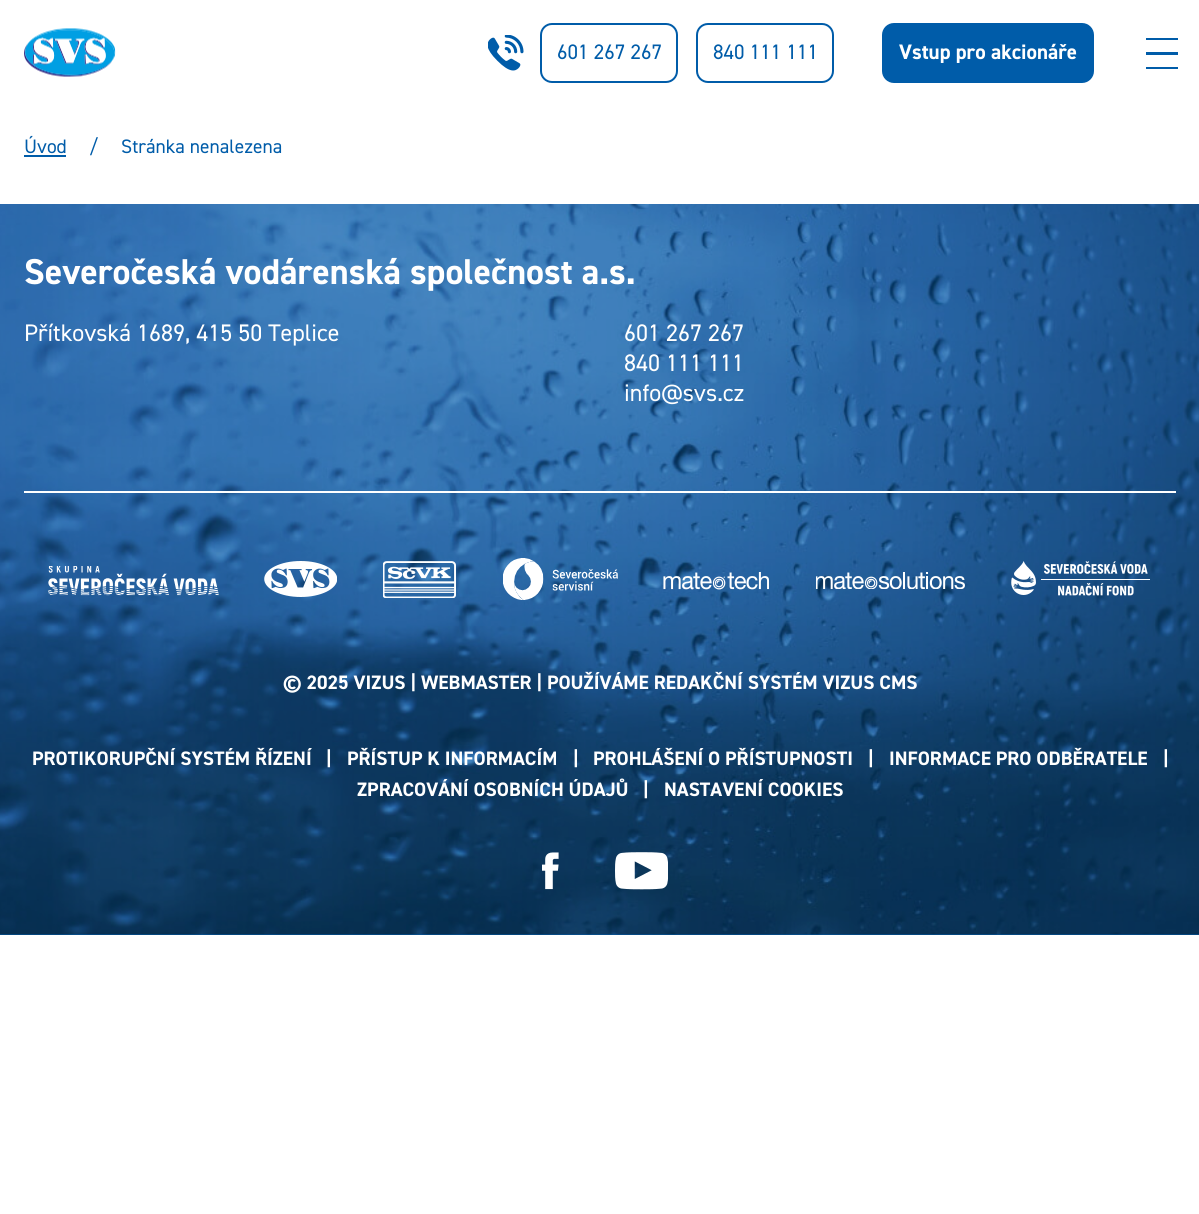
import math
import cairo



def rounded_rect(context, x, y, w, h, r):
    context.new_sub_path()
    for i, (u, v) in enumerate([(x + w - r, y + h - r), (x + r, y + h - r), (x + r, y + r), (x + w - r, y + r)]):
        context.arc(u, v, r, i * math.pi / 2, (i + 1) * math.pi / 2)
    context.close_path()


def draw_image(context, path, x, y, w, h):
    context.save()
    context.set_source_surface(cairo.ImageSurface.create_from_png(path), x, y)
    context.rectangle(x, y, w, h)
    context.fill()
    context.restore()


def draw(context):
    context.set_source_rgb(1, 1, 1)
    context.paint()
    draw_image(context, "images/1.png", 24, 28, 92, 49)
    draw_image(context, "images/2.png", 488, 35, 36, 36)
    rounded_rect(context, 541, 24, 136, 58, 11)
    context.set_source_rgb(0, 92 / 255, 169 / 255)
    context.stroke()
    rounded_rect(context, 697, 24, 136, 58, 11)
    context.stroke()
    rounded_rect(context, 883, 24, 210, 58, 11)
    context.fill_preserve()
    context.stroke()
    context.rectangle(1146, 38, 32, 2)
    context.fill()
    context.rectangle(1146, 52, 32, 3)
    context.fill()
    context.rectangle(1146, 67, 32, 2)
    context.fill()
    context.rectangle(24, 155, 42, 2)
    context.fill()
    context.rectangle(0, 204, 1199, 731)
    context.fill()
    draw_image(context, "images/3.png", 0, 204, 1199, 731)
    context.set_source_rgb(1, 1, 1)
    context.rectangle(24, 491, 1152, 2)
    context.fill()
    draw_image(context, "images/4.png", 48, 566, 171, 30)
    draw_image(context, "images/5.png", 264, 561, 73, 36)
    draw_image(context, "images/6.png", 383, 561, 73, 37)
    draw_image(context, "images/7.png", 503, 558, 115, 42)
    draw_image(context, "images/8.png", 663, 572, 106, 18)
    draw_image(context, "images/9.png", 816, 572, 149, 17)
    draw_image(context, "images/10.png", 1011, 561, 139, 35)
    draw_image(context, "images/11.png", 542, 852, 17, 38)
    draw_image(context, "images/12.png", 615, 852, 53, 38)
    context.select_font_face("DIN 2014")
    context.set_font_size(21)
    context.set_source_rgb(0, 92 / 255, 169 / 255)
    context.move_to(557, 59)
    context.show_text("601 267 267")
    context.move_to(713, 59)
    context.show_text("840 111 111")
    context.select_font_face("DIN 2014", cairo.FontSlant.NORMAL, cairo.FontWeight.BOLD)
    context.set_source_rgb(1, 1, 1)
    context.move_to(899, 59)
    context.show_text("Vstup pro akcionáře")
    context.select_font_face("DIN 2014")
    context.set_font_size(19.5)
    context.set_source_rgb(0, 92 / 255, 169 / 255)
    context.move_to(24, 153)
    context.show_text("Úvod")
    context.move_to(89, 153)
    context.show_text("/")
    context.move_to(121, 153)
    context.show_text("Stránka nenalezena")
    context.select_font_face("DIN 2014", cairo.FontSlant.NORMAL, cairo.FontWeight.BOLD)
    context.set_font_size(36)
    context.set_source_rgb(1, 1, 1)
    context.move_to(24, 284)
    context.show_text("Severočeská vodárenská společnost a.s.")
    context.select_font_face("DIN 2014")
    context.set_font_size(24)
    context.move_to(24, 341)
    context.show_text("Přítkovská 1689, 415 50 Teplice")
    context.move_to(624, 341)
    context.show_text("601 267 267")
    context.move_to(624, 371)
    context.show_text("840 111 111")
    context.move_to(624, 401)
    context.show_text("info@svs.cz")
    context.select_font_face("DIN 2014", cairo.FontSlant.NORMAL, cairo.FontWeight.BOLD)
    context.set_font_size(19.5)
    context.move_to(283, 689)
    context.show_text("© 2025 VIZUS | WEBMASTER | POUŽÍVÁME REDAKČNÍ SYSTÉM VIZUS CMS")
    context.move_to(32, 765)
    context.show_text("PROTIKORUPČNÍ SYSTÉM ŘÍZENÍ")
    context.move_to(326, 765)
    context.show_text("|")
    context.move_to(347, 765)
    context.show_text("PŘÍSTUP K INFORMACÍM")
    context.move_to(573, 765)
    context.show_text("|")
    context.move_to(593, 765)
    context.show_text("PROHLÁŠENÍ O PŘÍSTUPNOSTI")
    context.move_to(868, 765)
    context.show_text("|")
    context.move_to(889, 765)
    context.show_text("INFORMACE PRO ODBĚRATELE")
    context.move_to(1163, 765)
    context.show_text("|")
    context.move_to(357, 796)
    context.show_text("ZPRACOVÁNÍ OSOBNÍCH ÚDAJŮ")
    context.move_to(643, 796)
    context.show_text("|")
    context.move_to(664, 796)
    context.show_text("NASTAVENÍ COOKIES")


surface = cairo.ImageSurface(cairo.Format.RGB24, 1199, 1214)
context = cairo.Context(surface)
options = cairo.FontOptions()
options.set_hint_metrics(cairo.HintMetrics.OFF)
options.set_hint_style(cairo.HintStyle.NONE)
context.set_font_options(options)
context.set_miter_limit(4)
draw(context)
surface.write_to_png("out.png")
